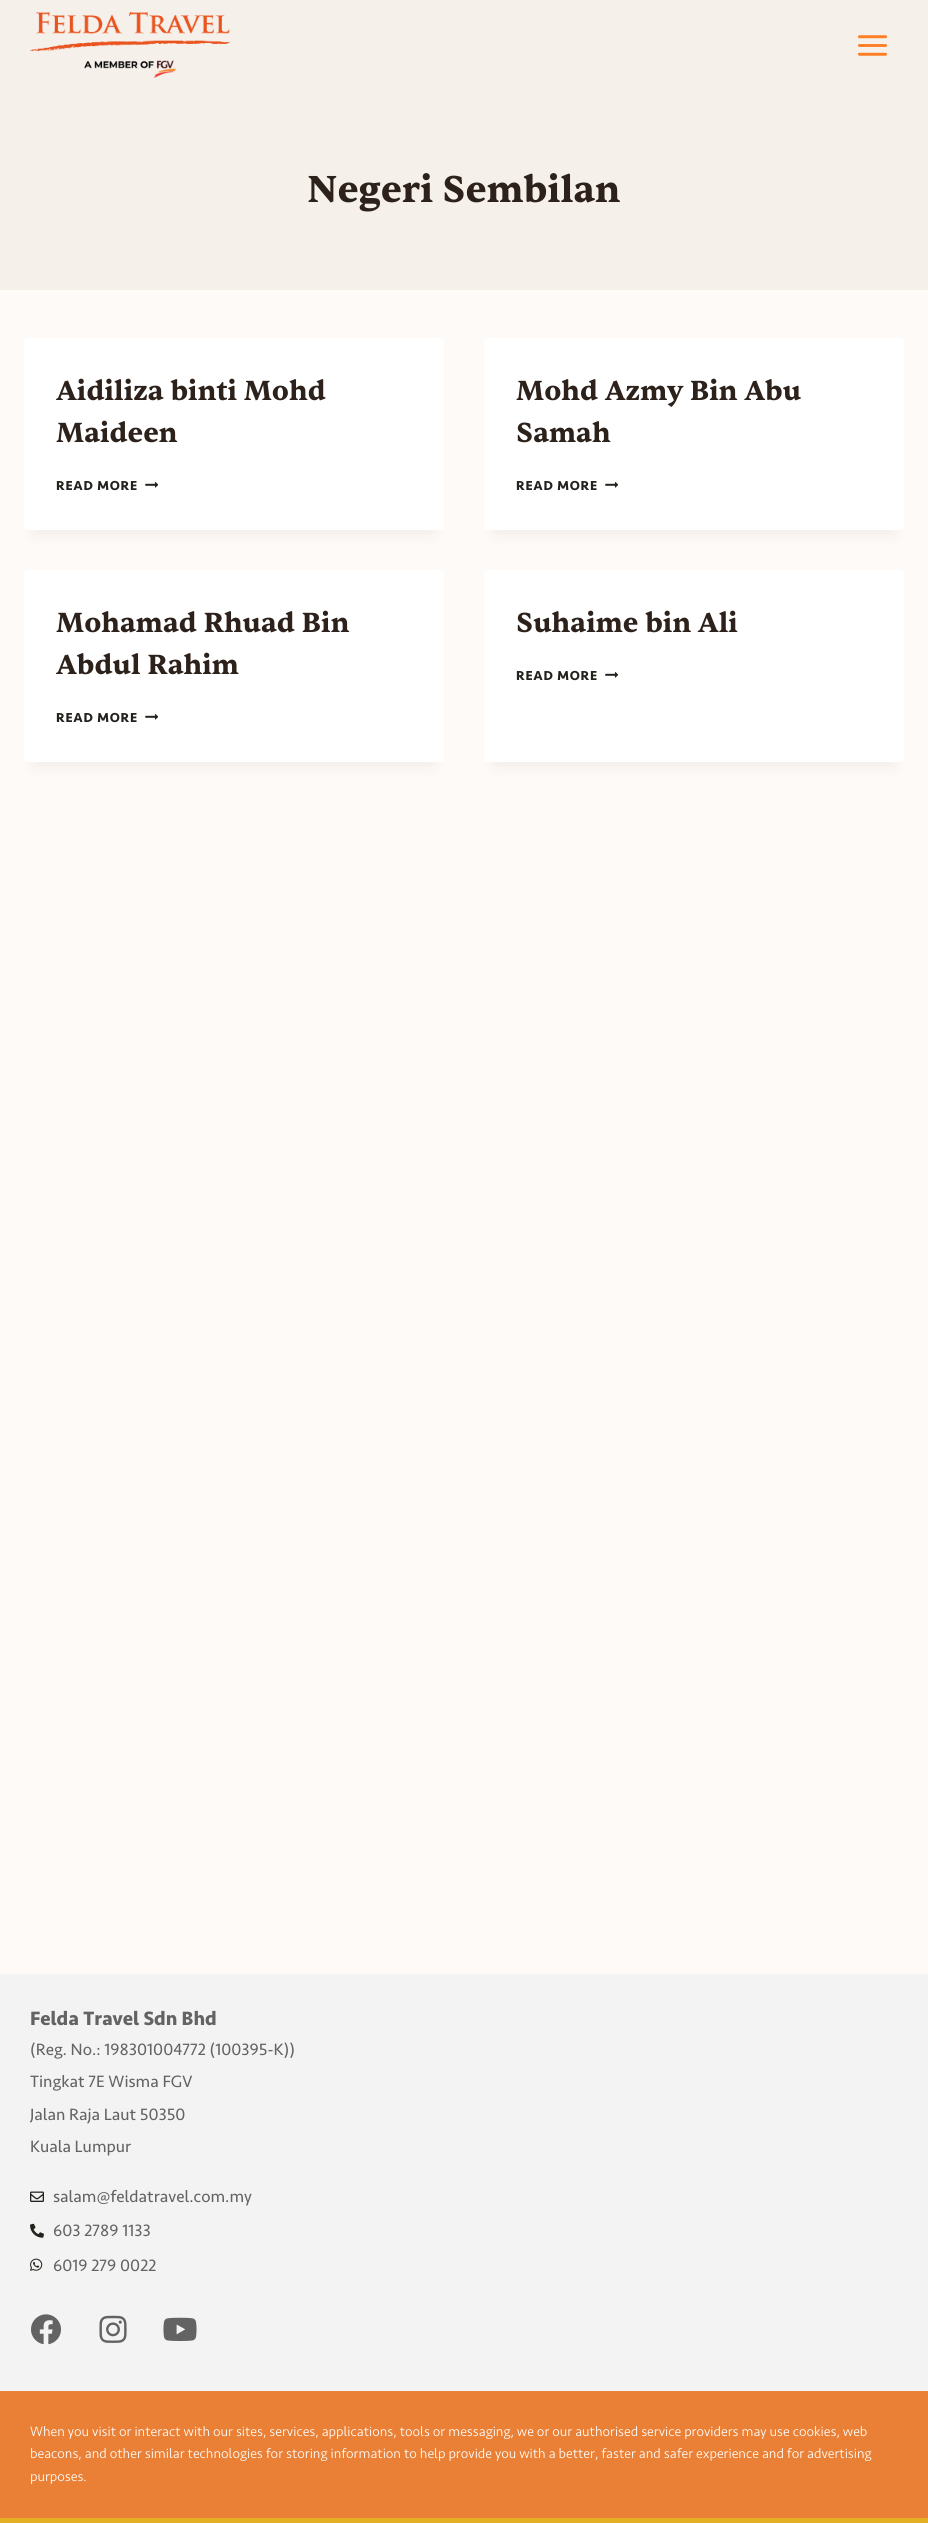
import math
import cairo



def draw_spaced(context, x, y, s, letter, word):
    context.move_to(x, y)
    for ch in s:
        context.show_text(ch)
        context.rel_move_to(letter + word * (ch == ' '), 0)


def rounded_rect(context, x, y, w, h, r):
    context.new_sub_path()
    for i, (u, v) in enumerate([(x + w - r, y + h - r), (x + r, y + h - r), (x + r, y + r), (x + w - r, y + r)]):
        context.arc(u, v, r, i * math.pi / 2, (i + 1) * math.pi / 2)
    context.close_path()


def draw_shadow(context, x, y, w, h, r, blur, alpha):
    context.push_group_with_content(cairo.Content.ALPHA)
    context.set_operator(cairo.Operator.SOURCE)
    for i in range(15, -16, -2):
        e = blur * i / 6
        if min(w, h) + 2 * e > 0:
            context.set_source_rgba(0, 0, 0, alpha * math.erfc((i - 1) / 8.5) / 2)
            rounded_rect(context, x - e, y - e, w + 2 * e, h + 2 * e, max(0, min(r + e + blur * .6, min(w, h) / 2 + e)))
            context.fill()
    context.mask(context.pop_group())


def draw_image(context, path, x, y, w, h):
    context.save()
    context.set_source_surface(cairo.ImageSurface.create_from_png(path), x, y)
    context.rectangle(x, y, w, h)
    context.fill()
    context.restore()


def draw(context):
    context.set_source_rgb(253 / 255, 250 / 255, 248 / 255)
    context.paint()
    context.set_source_rgb(246 / 255, 240 / 255, 235 / 255)
    context.rectangle(0, 0, 928, 290)
    context.fill()
    draw_image(context, "images/1.png", 30, 12, 200, 66)
    draw_image(context, "images/2.png", 857, 35, 31, 21)
    context.set_source_rgb(0, 0, 0)
    draw_shadow(context, 34, 363, 400, 172, 0, 7.5, 0.05)
    context.set_source_rgb(1, 1, 1)
    rounded_rect(context, 24, 338, 420, 192, 4)
    context.fill()
    draw_image(context, "images/3.png", 145, 481, 13, 7)
    context.set_source_rgb(0, 0, 0)
    draw_shadow(context, 494, 363, 400, 172, 0, 7.5, 0.05)
    context.set_source_rgb(1, 1, 1)
    rounded_rect(context, 484, 338, 420, 192, 4)
    context.fill()
    draw_image(context, "images/3.png", 605, 481, 13, 7)
    context.set_source_rgb(0, 0, 0)
    draw_shadow(context, 34, 595, 400, 172, 0, 7.5, 0.05)
    context.set_source_rgb(1, 1, 1)
    rounded_rect(context, 24, 570, 420, 192, 4)
    context.fill()
    draw_image(context, "images/3.png", 145, 713, 13, 7)
    context.set_source_rgb(0, 0, 0)
    draw_shadow(context, 494, 595, 400, 172, 0, 7.5, 0.05)
    context.set_source_rgb(1, 1, 1)
    rounded_rect(context, 484, 570, 420, 192, 4)
    context.fill()
    draw_image(context, "images/3.png", 605, 671, 13, 7)
    context.set_source_rgb(243 / 255, 243 / 255, 243 / 255)
    context.rectangle(0, 1974, 928, 417)
    context.fill()
    draw_image(context, "images/4.png", 30, 2191, 14, 11)
    draw_image(context, "images/5.png", 30, 2223, 14, 15)
    draw_image(context, "images/6.png", 30, 2258, 13, 13)
    draw_image(context, "images/7.png", 31, 2314, 30, 31)
    draw_image(context, "images/8.png", 99, 2315, 28, 28)
    draw_image(context, "images/9.png", 163, 2317, 34, 24)
    context.set_source_rgb(234 / 255, 128 / 255, 54 / 255)
    context.rectangle(0, 2391, 928, 127)
    context.fill()
    context.set_source_rgb(227 / 255, 175 / 255, 37 / 255)
    context.rectangle(0, 2518, 928, 5)
    context.fill()
    context.select_font_face("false", cairo.FontSlant.NORMAL, cairo.FontWeight.BOLD)
    context.set_font_size(38)
    context.set_source_rgb(45 / 255, 34 / 255, 27 / 255)
    context.move_to(307, 202)
    context.show_text("Negeri Sembilan")
    context.set_font_size(28)
    context.move_to(56, 400)
    context.show_text("Aidiliza binti Mohd")
    context.move_to(56, 442)
    context.show_text("Maideen")
    context.select_font_face("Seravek", cairo.FontSlant.NORMAL, cairo.FontWeight.BOLD)
    context.set_font_size(13.5)
    context.set_source_rgb(36 / 255, 34 / 255, 29 / 255)
    draw_spaced(context, 56, 490, "READ MORE", 0.75, 0)
    context.select_font_face("false", cairo.FontSlant.NORMAL, cairo.FontWeight.BOLD)
    context.set_font_size(28)
    context.set_source_rgb(45 / 255, 34 / 255, 27 / 255)
    context.move_to(516, 400)
    context.show_text("Mohd Azmy Bin Abu")
    context.move_to(516, 442)
    context.show_text("Samah")
    context.select_font_face("Seravek", cairo.FontSlant.NORMAL, cairo.FontWeight.BOLD)
    context.set_font_size(13.5)
    context.set_source_rgb(36 / 255, 34 / 255, 29 / 255)
    draw_spaced(context, 516, 490, "READ MORE", 0.75, 0)
    context.select_font_face("false", cairo.FontSlant.NORMAL, cairo.FontWeight.BOLD)
    context.set_font_size(28)
    context.set_source_rgb(45 / 255, 34 / 255, 27 / 255)
    context.move_to(56, 632)
    context.show_text("Mohamad Rhuad Bin")
    context.move_to(56, 674)
    context.show_text("Abdul Rahim")
    context.select_font_face("Seravek", cairo.FontSlant.NORMAL, cairo.FontWeight.BOLD)
    context.set_font_size(13.5)
    context.set_source_rgb(36 / 255, 34 / 255, 29 / 255)
    draw_spaced(context, 56, 722, "READ MORE", 0.75, 0)
    context.select_font_face("false", cairo.FontSlant.NORMAL, cairo.FontWeight.BOLD)
    context.set_font_size(28)
    context.set_source_rgb(45 / 255, 34 / 255, 27 / 255)
    context.move_to(516, 632)
    context.show_text("Suhaime bin Ali")
    context.select_font_face("Seravek", cairo.FontSlant.NORMAL, cairo.FontWeight.BOLD)
    context.set_font_size(13.5)
    context.set_source_rgb(36 / 255, 34 / 255, 29 / 255)
    draw_spaced(context, 516, 680, "READ MORE", 0.75, 0)
    context.set_font_size(20)
    context.set_source_rgb(99 / 255, 99 / 255, 99 / 255)
    context.move_to(30, 2025)
    context.show_text("Felda Travel Sdn Bhd")
    context.select_font_face("Seravek")
    context.set_font_size(17)
    context.move_to(30, 2055)
    context.show_text("(Reg. No.: 198301004772 (100395-K))")
    context.move_to(30, 2087)
    context.show_text("Tingkat 7E Wisma FGV")
    context.move_to(30, 2120)
    context.show_text("Jalan Raja Laut 50350")
    context.move_to(30, 2152)
    context.show_text("Kuala Lumpur")
    context.move_to(53, 2202)
    context.show_text("salam@feldatravel.com.my")
    context.move_to(53, 2236)
    context.show_text("603 2789 1133")
    context.move_to(53, 2271)
    context.show_text("6019 279 0022")
    context.select_font_face("Seravek Light")
    context.set_font_size(14)
    context.set_source_rgb(1, 1, 1)
    context.move_to(30, 2436)
    context.show_text("When you visit or interact with our sites, services, applications, tools or messaging, we or our authorised service providers may use cookies, web")
    context.move_to(30, 2458)
    context.show_text("beacons, and other similar technologies for storing information to help provide you with a better, faster and safer experience and for advertising")
    context.move_to(30, 2481)
    context.show_text("purposes.")


surface = cairo.ImageSurface(cairo.Format.RGB24, 928, 2523)
context = cairo.Context(surface)
options = cairo.FontOptions()
options.set_hint_metrics(cairo.HintMetrics.OFF)
options.set_hint_style(cairo.HintStyle.NONE)
context.set_font_options(options)
context.set_miter_limit(4)
draw(context)
surface.write_to_png("out.png")
